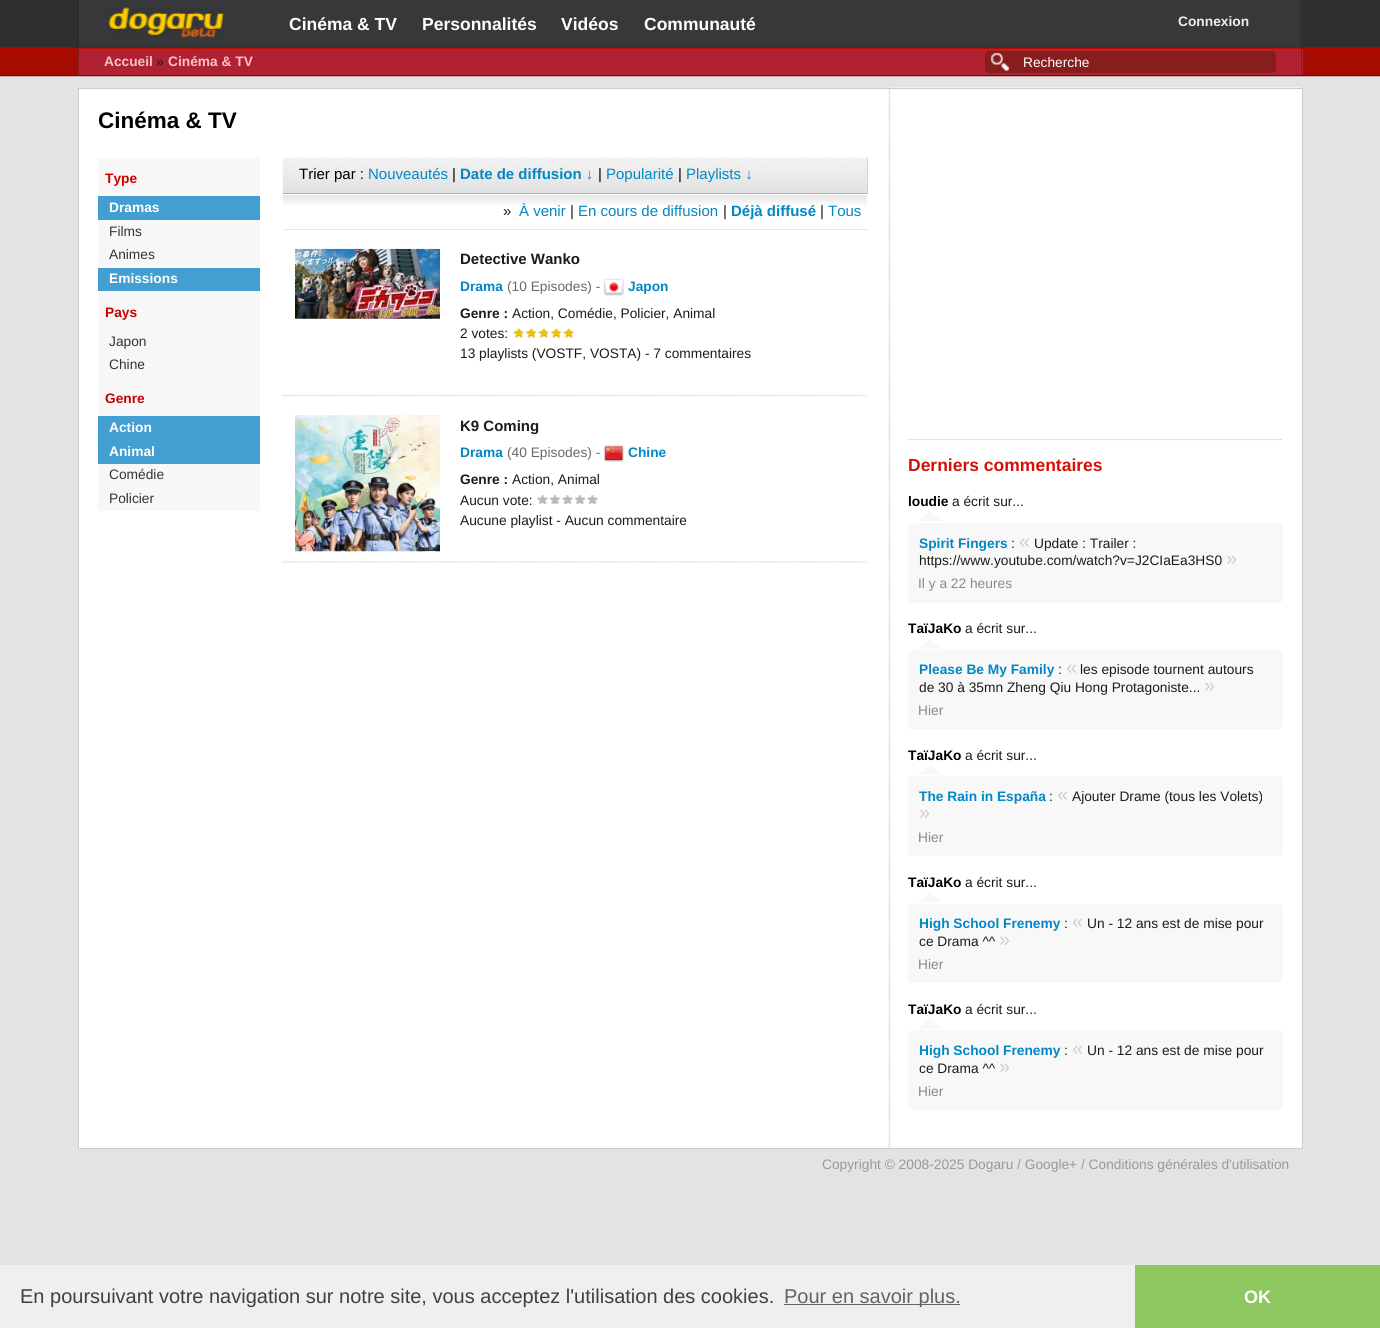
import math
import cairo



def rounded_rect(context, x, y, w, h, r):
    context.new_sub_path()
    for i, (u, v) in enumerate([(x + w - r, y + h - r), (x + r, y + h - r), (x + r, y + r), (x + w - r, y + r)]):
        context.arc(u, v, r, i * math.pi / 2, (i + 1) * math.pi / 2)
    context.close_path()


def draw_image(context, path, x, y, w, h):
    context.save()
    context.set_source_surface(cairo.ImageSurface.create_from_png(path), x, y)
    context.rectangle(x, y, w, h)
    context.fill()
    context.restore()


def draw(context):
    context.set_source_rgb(227 / 255, 227 / 255, 227 / 255)
    context.paint()
    draw_image(context, "images/1.png", 0, 0, 1380, 77)
    context.set_source_rgb(55 / 255, 56 / 255, 58 / 255)
    context.rectangle(79, 0, 1224, 48)
    context.fill()
    context.set_source_rgb(41 / 255, 42 / 255, 43 / 255)
    context.rectangle(1301, 0, 1, 48)
    context.fill()
    context.set_source_rgb(49 / 255, 50 / 255, 51 / 255)
    context.rectangle(78, 46, 1225, 1)
    context.fill()
    context.set_source_rgb(41 / 255, 42 / 255, 43 / 255)
    context.rectangle(78, 0, 1, 48)
    context.fill()
    draw_image(context, "images/2.png", 107, 7, 117, 31)
    context.set_source_rgb(176 / 255, 34 / 255, 50 / 255)
    context.rectangle(79, 49, 1224, 26)
    context.fill()
    context.set_source_rgb(187 / 255, 12 / 255, 0)
    context.rectangle(78, 48, 1225, 1)
    context.fill()
    context.set_source_rgb(135 / 255, 29 / 255, 29 / 255)
    context.rectangle(1301, 48, 1, 28)
    context.fill()
    context.set_source_rgb(118 / 255, 7 / 255, 0)
    context.rectangle(78, 75, 1225, 1)
    context.fill()
    context.set_source_rgb(135 / 255, 29 / 255, 29 / 255)
    context.rectangle(78, 48, 1, 28)
    context.fill()
    rounded_rect(context, 985, 51, 291, 22, 4)
    context.fill()
    draw_image(context, "images/3.png", 991, 53, 19, 19)
    context.set_source_rgb(1, 1, 1)
    context.rectangle(79, 89, 1223, 1059)
    context.fill()
    draw_image(context, "images/4.png", 888, 87, 413, 1061)
    context.rectangle(78.5, 88.5, 1224, 1060)
    context.set_source_rgb(204 / 255, 204 / 255, 204 / 255)
    context.set_line_width(1)
    context.stroke()
    context.set_source_rgb(247 / 255, 247 / 255, 247 / 255)
    context.rectangle(98, 158, 162, 38)
    context.fill()
    context.set_source_rgb(67 / 255, 159 / 255, 210 / 255)
    context.rectangle(98, 196, 162, 24)
    context.fill()
    context.set_source_rgb(247 / 255, 247 / 255, 247 / 255)
    context.rectangle(98, 220, 162, 48)
    context.fill()
    context.set_source_rgb(67 / 255, 159 / 255, 210 / 255)
    context.rectangle(98, 268, 162, 23)
    context.fill()
    context.set_source_rgb(247 / 255, 247 / 255, 247 / 255)
    context.rectangle(98, 291, 162, 63)
    context.fill()
    context.rectangle(98, 354, 162, 62)
    context.fill()
    context.set_source_rgb(67 / 255, 159 / 255, 210 / 255)
    context.rectangle(98, 416, 162, 48)
    context.fill()
    context.set_source_rgb(247 / 255, 247 / 255, 247 / 255)
    context.rectangle(98, 464, 162, 47)
    context.fill()
    context.set_source_rgb(205 / 255, 204 / 255, 204 / 255)
    context.rectangle(867, 158, 1, 35)
    context.fill()
    draw_image(context, "images/5.png", 282, 157, 586, 37)
    context.set_source_rgb(179 / 255, 179 / 255, 179 / 255)
    context.rectangle(283, 193, 585, 1)
    context.fill()
    draw_image(context, "images/6.png", 282, 195, 586, 10)
    context.set_source_rgb(233 / 255, 233 / 255, 233 / 255)
    context.rectangle(283, 229, 585, 1)
    context.fill()
    context.new_path()
    context.move_to(282.5, 395.5)
    context.line_to(867.5, 395.5)
    context.set_source_rgb(204 / 255, 204 / 255, 204 / 255)
    context.set_line_width(1.2)
    context.set_dash([1.25, 1.25])
    context.stroke()
    draw_image(context, "images/7.png", 295, 248, 145, 71)
    draw_image(context, "images/8.png", 603, 278, 21, 18)
    draw_image(context, "images/9.png", 513, 328, 61, 10)
    context.new_path()
    context.move_to(282.5, 562)
    context.line_to(867.5, 562)
    context.stroke()
    draw_image(context, "images/10.png", 295, 415, 145, 137)
    draw_image(context, "images/11.png", 603, 445, 21, 18)
    draw_image(context, "images/12.png", 537, 495, 61, 9)
    context.new_path()
    context.move_to(907.5, 439.5)
    context.line_to(1282.5, 439.5)
    context.stroke()
    context.set_source_rgb(248 / 255, 248 / 255, 248 / 255)
    rounded_rect(context, 908, 523, 375, 80, 4)
    context.fill()
    context.new_path()
    context.move_to(942.5, 521)
    context.line_to(917.5, 521)
    context.line_to(930, 511)
    context.close_path()
    context.fill()
    rounded_rect(context, 908, 650, 375, 79, 4)
    context.fill()
    context.new_path()
    context.move_to(942.5, 649)
    context.line_to(917.5, 649)
    context.line_to(930, 639)
    context.close_path()
    context.fill()
    rounded_rect(context, 908, 776, 375, 80, 4)
    context.fill()
    context.new_path()
    context.move_to(942.5, 775)
    context.line_to(917.5, 775)
    context.line_to(930, 765)
    context.close_path()
    context.fill()
    rounded_rect(context, 908, 904, 375, 79, 4)
    context.fill()
    context.new_path()
    context.move_to(942.5, 902.5)
    context.line_to(917.5, 902.5)
    context.line_to(930, 892.5)
    context.close_path()
    context.fill()
    rounded_rect(context, 908, 1030, 375, 80, 4)
    context.fill()
    context.new_path()
    context.move_to(942.5, 1029)
    context.line_to(917.5, 1029)
    context.line_to(930, 1019)
    context.close_path()
    context.fill()
    context.set_source_rgb(239 / 255, 239 / 255, 239 / 255)
    context.rectangle(0, 1265, 1135, 63)
    context.fill()
    context.set_source_rgb(99 / 255, 99 / 255, 99 / 255)
    context.rectangle(784, 1304, 176, 1)
    context.fill()
    context.set_source_rgb(142 / 255, 199 / 255, 96 / 255)
    context.rectangle(1135, 1265, 245, 63)
    context.fill()
    context.select_font_face("Liberation Sans", cairo.FontSlant.NORMAL, cairo.FontWeight.BOLD)
    context.set_font_size(17.5)
    context.set_source_rgb(1, 1, 1)
    context.move_to(289, 30)
    context.show_text("Cinéma & TV")
    context.move_to(422, 30)
    context.show_text("Personnalités")
    context.move_to(561, 30)
    context.show_text("Vidéos")
    context.move_to(644, 30)
    context.show_text("Communauté")
    context.set_font_size(13.75)
    context.set_source_rgb(238 / 255, 238 / 255, 238 / 255)
    context.move_to(1178, 26)
    context.show_text("Connexion")
    context.set_source_rgb(249 / 255, 194 / 255, 200 / 255)
    context.move_to(104, 66)
    context.show_text("Accueil")
    context.select_font_face("Liberation Sans")
    context.set_source_rgb(27 / 255, 27 / 255, 27 / 255)
    context.move_to(156, 66)
    context.show_text("»")
    context.select_font_face("Liberation Sans", cairo.FontSlant.NORMAL, cairo.FontWeight.BOLD)
    context.set_source_rgb(249 / 255, 194 / 255, 200 / 255)
    context.move_to(168, 66)
    context.show_text("Cinéma & TV")
    context.select_font_face("Liberation Sans")
    context.set_source_rgb(1, 1, 1)
    context.move_to(1023, 67)
    context.show_text("Recherche")
    context.select_font_face("Liberation Sans", cairo.FontSlant.NORMAL, cairo.FontWeight.BOLD)
    context.set_font_size(22.5)
    context.set_source_rgb(0, 0, 0)
    context.move_to(98, 128)
    context.show_text("Cinéma & TV")
    context.set_font_size(13.75)
    context.set_source_rgb(202 / 255, 0, 0)
    context.move_to(105, 183)
    context.show_text("Type")
    context.set_source_rgb(1, 1, 1)
    context.move_to(109, 212)
    context.show_text("Dramas")
    context.select_font_face("Liberation Sans")
    context.set_source_rgb(51 / 255, 51 / 255, 51 / 255)
    context.move_to(109, 236)
    context.show_text("Films")
    context.move_to(109, 259)
    context.show_text("Animes")
    context.select_font_face("Liberation Sans", cairo.FontSlant.NORMAL, cairo.FontWeight.BOLD)
    context.set_source_rgb(1, 1, 1)
    context.move_to(109, 283)
    context.show_text("Emissions")
    context.set_source_rgb(202 / 255, 0, 0)
    context.move_to(105, 317)
    context.show_text("Pays")
    context.select_font_face("Liberation Sans")
    context.set_source_rgb(51 / 255, 51 / 255, 51 / 255)
    context.move_to(109, 346)
    context.show_text("Japon")
    context.move_to(109, 369)
    context.show_text("Chine")
    context.select_font_face("Liberation Sans", cairo.FontSlant.NORMAL, cairo.FontWeight.BOLD)
    context.set_source_rgb(202 / 255, 0, 0)
    context.move_to(105, 403)
    context.show_text("Genre")
    context.set_source_rgb(1, 1, 1)
    context.move_to(109, 432)
    context.show_text("Action")
    context.move_to(109, 456)
    context.show_text("Animal")
    context.select_font_face("Liberation Sans")
    context.set_source_rgb(51 / 255, 51 / 255, 51 / 255)
    context.move_to(109, 479)
    context.show_text("Comédie")
    context.move_to(109, 503)
    context.show_text("Policier")
    context.set_font_size(15)
    context.set_source_rgb(0, 0, 0)
    context.move_to(299, 179)
    context.show_text("Trier par :")
    context.set_source_rgb(1 / 255, 135 / 255, 197 / 255)
    context.move_to(368, 179)
    context.show_text("Nouveautés")
    context.set_source_rgb(0, 0, 0)
    context.move_to(452, 179)
    context.show_text("|")
    context.select_font_face("Liberation Sans", cairo.FontSlant.NORMAL, cairo.FontWeight.BOLD)
    context.set_source_rgb(1 / 255, 135 / 255, 197 / 255)
    context.move_to(460, 179)
    context.show_text("Date de diffusion ↓")
    context.select_font_face("Liberation Sans")
    context.set_source_rgb(0, 0, 0)
    context.move_to(598, 179)
    context.show_text("|")
    context.set_source_rgb(1 / 255, 135 / 255, 197 / 255)
    context.move_to(606, 179)
    context.show_text("Popularité")
    context.set_source_rgb(0, 0, 0)
    context.move_to(678, 179)
    context.show_text("|")
    context.set_source_rgb(1 / 255, 135 / 255, 197 / 255)
    context.move_to(686, 179)
    context.show_text("Playlists ↓")
    context.set_source_rgb(27 / 255, 27 / 255, 27 / 255)
    context.move_to(503, 216)
    context.show_text("»")
    context.set_source_rgb(1 / 255, 135 / 255, 197 / 255)
    context.move_to(519, 216)
    context.show_text("À venir")
    context.set_source_rgb(27 / 255, 27 / 255, 27 / 255)
    context.move_to(570, 216)
    context.show_text("|")
    context.set_source_rgb(1 / 255, 135 / 255, 197 / 255)
    context.move_to(578, 216)
    context.show_text("En cours de diffusion")
    context.set_source_rgb(27 / 255, 27 / 255, 27 / 255)
    context.move_to(723, 216)
    context.show_text("|")
    context.select_font_face("Liberation Sans", cairo.FontSlant.NORMAL, cairo.FontWeight.BOLD)
    context.set_source_rgb(1 / 255, 135 / 255, 197 / 255)
    context.move_to(731, 216)
    context.show_text("Déjà diffusé")
    context.select_font_face("Liberation Sans")
    context.set_source_rgb(27 / 255, 27 / 255, 27 / 255)
    context.move_to(820, 216)
    context.show_text("|")
    context.set_source_rgb(1 / 255, 135 / 255, 197 / 255)
    context.move_to(828, 216)
    context.show_text("Tous")
    context.select_font_face("Liberation Sans", cairo.FontSlant.NORMAL, cairo.FontWeight.BOLD)
    context.set_source_rgb(27 / 255, 27 / 255, 27 / 255)
    context.move_to(460, 264)
    context.show_text("Detective Wanko")
    context.set_font_size(13.75)
    context.set_source_rgb(1 / 255, 135 / 255, 197 / 255)
    context.move_to(460, 291)
    context.show_text("Drama")
    context.select_font_face("Liberation Sans")
    context.set_source_rgb(105 / 255, 105 / 255, 105 / 255)
    context.move_to(507, 291)
    context.show_text("(10 Episodes) -")
    context.select_font_face("Liberation Sans", cairo.FontSlant.NORMAL, cairo.FontWeight.BOLD)
    context.set_source_rgb(1 / 255, 135 / 255, 197 / 255)
    context.move_to(628, 291)
    context.show_text("Japon")
    context.set_source_rgb(27 / 255, 27 / 255, 27 / 255)
    context.move_to(460, 318)
    context.show_text("Genre :")
    context.select_font_face("Liberation Sans")
    context.move_to(512, 318)
    context.show_text("Action, Comédie, Policier, Animal")
    context.move_to(460, 338)
    context.show_text("2 votes:")
    context.move_to(460, 358)
    context.show_text("13 playlists (VOSTF, VOSTA) - 7 commentaires")
    context.select_font_face("Liberation Sans", cairo.FontSlant.NORMAL, cairo.FontWeight.BOLD)
    context.set_font_size(15)
    context.move_to(460, 431)
    context.show_text("K9 Coming")
    context.set_font_size(13.75)
    context.set_source_rgb(1 / 255, 135 / 255, 197 / 255)
    context.move_to(460, 457)
    context.show_text("Drama")
    context.select_font_face("Liberation Sans")
    context.set_source_rgb(105 / 255, 105 / 255, 105 / 255)
    context.move_to(507, 457)
    context.show_text("(40 Episodes) -")
    context.select_font_face("Liberation Sans", cairo.FontSlant.NORMAL, cairo.FontWeight.BOLD)
    context.set_source_rgb(1 / 255, 135 / 255, 197 / 255)
    context.move_to(628, 457)
    context.show_text("Chine")
    context.set_source_rgb(27 / 255, 27 / 255, 27 / 255)
    context.move_to(460, 484)
    context.show_text("Genre :")
    context.select_font_face("Liberation Sans")
    context.move_to(512, 484)
    context.show_text("Action, Animal")
    context.move_to(460, 505)
    context.show_text("Aucun vote:")
    context.move_to(460, 525)
    context.show_text("Aucune playlist - Aucun commentaire")
    context.select_font_face("Liberation Sans", cairo.FontSlant.NORMAL, cairo.FontWeight.BOLD)
    context.set_font_size(17.5)
    context.set_source_rgb(213 / 255, 16 / 255, 7 / 255)
    context.move_to(908, 471)
    context.show_text("Derniers commentaires")
    context.set_font_size(13.75)
    context.set_source_rgb(0, 0, 0)
    context.move_to(908, 506)
    context.show_text("loudie")
    context.select_font_face("Liberation Sans")
    context.set_source_rgb(27 / 255, 27 / 255, 27 / 255)
    context.move_to(952, 506)
    context.show_text("a écrit sur...")
    context.select_font_face("Liberation Sans", cairo.FontSlant.NORMAL, cairo.FontWeight.BOLD)
    context.set_source_rgb(1 / 255, 135 / 255, 197 / 255)
    context.move_to(919, 548)
    context.show_text("Spirit Fingers")
    context.select_font_face("Liberation Sans")
    context.set_source_rgb(27 / 255, 27 / 255, 27 / 255)
    context.move_to(1011, 548)
    context.show_text(":")
    context.set_font_size(20)
    context.set_source_rgb(206 / 255, 206 / 255, 206 / 255)
    context.move_to(1019, 548)
    context.show_text("«")
    context.set_font_size(13.75)
    context.set_source_rgb(27 / 255, 27 / 255, 27 / 255)
    context.move_to(1034, 548)
    context.show_text("Update : Trailer :")
    context.move_to(919, 565)
    context.show_text("https://www.youtube.com/watch?v=J2CIaEa3HS0")
    context.set_font_size(20)
    context.set_source_rgb(206 / 255, 206 / 255, 206 / 255)
    context.move_to(1226, 565)
    context.show_text("»")
    context.set_font_size(13.75)
    context.set_source_rgb(137 / 255, 137 / 255, 137 / 255)
    context.move_to(918, 588)
    context.show_text("Il y a 22 heures")
    context.select_font_face("Liberation Sans", cairo.FontSlant.NORMAL, cairo.FontWeight.BOLD)
    context.set_source_rgb(0, 0, 0)
    context.move_to(908, 633)
    context.show_text("TaïJaKo")
    context.select_font_face("Liberation Sans")
    context.set_source_rgb(27 / 255, 27 / 255, 27 / 255)
    context.move_to(965, 633)
    context.show_text("a écrit sur...")
    context.select_font_face("Liberation Sans", cairo.FontSlant.NORMAL, cairo.FontWeight.BOLD)
    context.set_source_rgb(1 / 255, 135 / 255, 197 / 255)
    context.move_to(919, 674)
    context.show_text("Please Be My Family")
    context.select_font_face("Liberation Sans")
    context.set_source_rgb(27 / 255, 27 / 255, 27 / 255)
    context.move_to(1058, 674)
    context.show_text(":")
    context.set_font_size(20)
    context.set_source_rgb(206 / 255, 206 / 255, 206 / 255)
    context.move_to(1066, 674)
    context.show_text("«")
    context.set_font_size(13.75)
    context.set_source_rgb(27 / 255, 27 / 255, 27 / 255)
    context.move_to(1080, 674)
    context.show_text("les episode tournent autours")
    context.move_to(919, 692)
    context.show_text("de 30 à 35mn Zheng Qiu Hong Protagoniste...")
    context.set_font_size(20)
    context.set_source_rgb(206 / 255, 206 / 255, 206 / 255)
    context.move_to(1204, 692)
    context.show_text("»")
    context.set_font_size(13.75)
    context.set_source_rgb(137 / 255, 137 / 255, 137 / 255)
    context.move_to(918, 715)
    context.show_text("Hier")
    context.select_font_face("Liberation Sans", cairo.FontSlant.NORMAL, cairo.FontWeight.BOLD)
    context.set_source_rgb(0, 0, 0)
    context.move_to(908, 760)
    context.show_text("TaïJaKo")
    context.select_font_face("Liberation Sans")
    context.set_source_rgb(27 / 255, 27 / 255, 27 / 255)
    context.move_to(965, 760)
    context.show_text("a écrit sur...")
    context.select_font_face("Liberation Sans", cairo.FontSlant.NORMAL, cairo.FontWeight.BOLD)
    context.set_source_rgb(1 / 255, 135 / 255, 197 / 255)
    context.move_to(919, 801)
    context.show_text("The Rain in España")
    context.select_font_face("Liberation Sans")
    context.set_source_rgb(27 / 255, 27 / 255, 27 / 255)
    context.move_to(1049, 801)
    context.show_text(":")
    context.set_font_size(20)
    context.set_source_rgb(206 / 255, 206 / 255, 206 / 255)
    context.move_to(1057, 801)
    context.show_text("«")
    context.set_font_size(13.75)
    context.set_source_rgb(27 / 255, 27 / 255, 27 / 255)
    context.move_to(1072, 801)
    context.show_text("Ajouter Drame (tous les Volets)")
    context.set_font_size(20)
    context.set_source_rgb(206 / 255, 206 / 255, 206 / 255)
    context.move_to(919, 819)
    context.show_text("»")
    context.set_font_size(13.75)
    context.set_source_rgb(137 / 255, 137 / 255, 137 / 255)
    context.move_to(918, 842)
    context.show_text("Hier")
    context.select_font_face("Liberation Sans", cairo.FontSlant.NORMAL, cairo.FontWeight.BOLD)
    context.set_source_rgb(0, 0, 0)
    context.move_to(908, 887)
    context.show_text("TaïJaKo")
    context.select_font_face("Liberation Sans")
    context.set_source_rgb(27 / 255, 27 / 255, 27 / 255)
    context.move_to(965, 887)
    context.show_text("a écrit sur...")
    context.select_font_face("Liberation Sans", cairo.FontSlant.NORMAL, cairo.FontWeight.BOLD)
    context.set_source_rgb(1 / 255, 135 / 255, 197 / 255)
    context.move_to(919, 928)
    context.show_text("High School Frenemy")
    context.select_font_face("Liberation Sans")
    context.set_source_rgb(27 / 255, 27 / 255, 27 / 255)
    context.move_to(1064, 928)
    context.show_text(":")
    context.set_font_size(20)
    context.set_source_rgb(206 / 255, 206 / 255, 206 / 255)
    context.move_to(1072, 928)
    context.show_text("«")
    context.set_font_size(13.75)
    context.set_source_rgb(27 / 255, 27 / 255, 27 / 255)
    context.move_to(1087, 928)
    context.show_text("Un - 12 ans est de mise pour")
    context.move_to(919, 946)
    context.show_text("ce Drama ^^")
    context.set_font_size(20)
    context.set_source_rgb(206 / 255, 206 / 255, 206 / 255)
    context.move_to(999, 946)
    context.show_text("»")
    context.set_font_size(13.75)
    context.set_source_rgb(137 / 255, 137 / 255, 137 / 255)
    context.move_to(918, 969)
    context.show_text("Hier")
    context.select_font_face("Liberation Sans", cairo.FontSlant.NORMAL, cairo.FontWeight.BOLD)
    context.set_source_rgb(0, 0, 0)
    context.move_to(908, 1014)
    context.show_text("TaïJaKo")
    context.select_font_face("Liberation Sans")
    context.set_source_rgb(27 / 255, 27 / 255, 27 / 255)
    context.move_to(965, 1014)
    context.show_text("a écrit sur...")
    context.select_font_face("Liberation Sans", cairo.FontSlant.NORMAL, cairo.FontWeight.BOLD)
    context.set_source_rgb(1 / 255, 135 / 255, 197 / 255)
    context.move_to(919, 1055)
    context.show_text("High School Frenemy")
    context.select_font_face("Liberation Sans")
    context.set_source_rgb(27 / 255, 27 / 255, 27 / 255)
    context.move_to(1064, 1055)
    context.show_text(":")
    context.set_font_size(20)
    context.set_source_rgb(206 / 255, 206 / 255, 206 / 255)
    context.move_to(1072, 1055)
    context.show_text("«")
    context.set_font_size(13.75)
    context.set_source_rgb(27 / 255, 27 / 255, 27 / 255)
    context.move_to(1087, 1055)
    context.show_text("Un - 12 ans est de mise pour")
    context.move_to(919, 1073)
    context.show_text("ce Drama ^^")
    context.set_font_size(20)
    context.set_source_rgb(206 / 255, 206 / 255, 206 / 255)
    context.move_to(999, 1073)
    context.show_text("»")
    context.set_font_size(13.75)
    context.set_source_rgb(137 / 255, 137 / 255, 137 / 255)
    context.move_to(918, 1096)
    context.show_text("Hier")
    context.set_source_rgb(153 / 255, 153 / 255, 153 / 255)
    context.move_to(822, 1169)
    context.show_text("Copyright © 2008-2025 Dogaru / Google+ / Conditions générales d'utilisation")
    context.set_font_size(20)
    context.set_source_rgb(64 / 255, 64 / 255, 64 / 255)
    context.move_to(20, 1303)
    context.show_text("En poursuivant votre navigation sur notre site, vous acceptez l'utilisation des cookies.")
    context.set_source_rgb(99 / 255, 99 / 255, 99 / 255)
    context.move_to(784, 1303)
    context.show_text("Pour en savoir plus.")
    context.select_font_face("Liberation Sans", cairo.FontSlant.NORMAL, cairo.FontWeight.BOLD)
    context.set_font_size(18)
    context.set_source_rgb(1, 1, 1)
    context.move_to(1244, 1303)
    context.show_text("OK")


surface = cairo.ImageSurface(cairo.Format.RGB24, 1380, 1328)
context = cairo.Context(surface)
options = cairo.FontOptions()
options.set_hint_metrics(cairo.HintMetrics.OFF)
options.set_hint_style(cairo.HintStyle.NONE)
context.set_font_options(options)
context.set_miter_limit(4)
draw(context)
surface.write_to_png("out.png")
